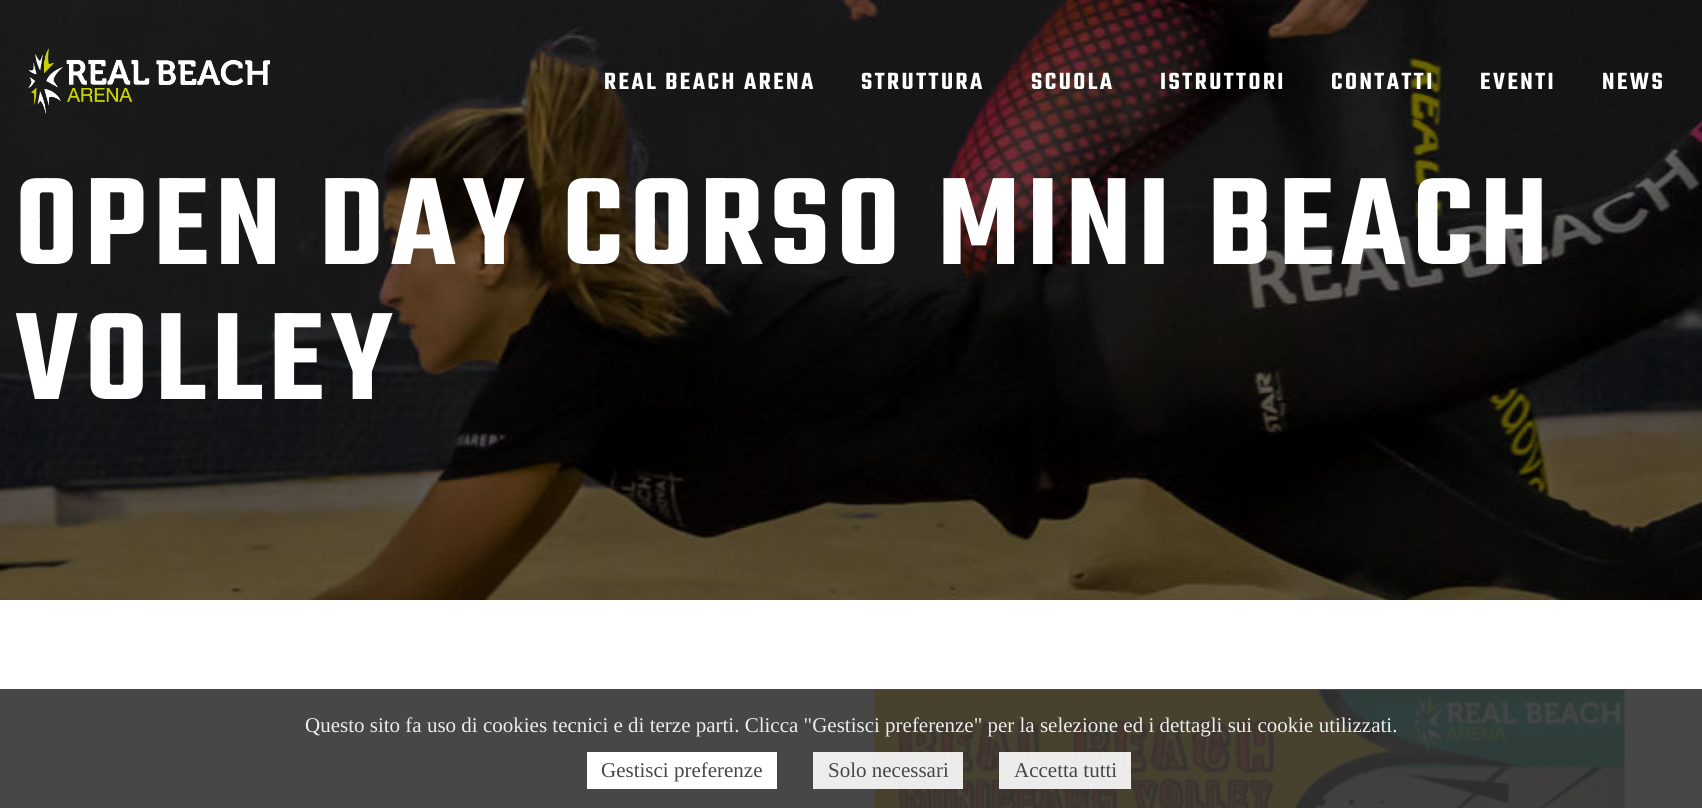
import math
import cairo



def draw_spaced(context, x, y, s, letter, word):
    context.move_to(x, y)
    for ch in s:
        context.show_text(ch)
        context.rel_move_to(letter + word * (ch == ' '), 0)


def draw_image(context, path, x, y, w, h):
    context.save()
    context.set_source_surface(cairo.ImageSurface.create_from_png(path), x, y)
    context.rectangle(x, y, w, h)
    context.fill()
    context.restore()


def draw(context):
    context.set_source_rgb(1, 1, 1)
    context.paint()
    draw_image(context, "images/2.png", 0, 0, 1702, 600)
    draw_image(context, "images/1.png", 28, 48, 242, 66)
    draw_image(context, "images/3.png", 874, 690, 751, 118)
    context.set_source_rgba(51 / 255, 51 / 255, 51 / 255, 0.9)
    context.rectangle(0, 689, 1702, 119)
    context.fill()
    context.set_source_rgb(1, 1, 1)
    context.rectangle(587, 752, 190, 37)
    context.fill()
    context.set_source_rgba(1, 1, 1, 0.9)
    context.rectangle(813, 752, 150, 37)
    context.fill()
    context.rectangle(999, 752, 132, 37)
    context.fill()
    context.select_font_face("Teko SemiBold")
    context.set_font_size(25.5)
    context.set_source_rgb(1, 1, 1)
    draw_spaced(context, 604, 89, "REAL BEACH ARENA", 2.5, 0)
    draw_spaced(context, 861, 89, "STRUTTURA", 2.5, 0)
    draw_spaced(context, 1031, 89, "SCUOLA", 2.5, 0)
    draw_spaced(context, 1160, 89, "ISTRUTTORI", 2.5, 0)
    draw_spaced(context, 1331, 89, "CONTATTI", 2.5, 0)
    draw_spaced(context, 1480, 89, "EVENTI", 2.5, 0)
    draw_spaced(context, 1602, 89, "NEWS", 2.5, 0)
    context.set_font_size(135)
    draw_spaced(context, 15, 264, "OPEN DAY CORSO MINI BEACH", 6.75, 0)
    draw_spaced(context, 15, 399, "VOLLEY", 6.75, 0)
    context.select_font_face("Liberation Serif")
    context.set_font_size(21)
    context.set_source_rgb(236 / 255, 236 / 255, 235 / 255)
    context.move_to(305, 732)
    context.show_text("Questo sito fa uso di cookies tecnici e di terze parti. Clicca \"Gestisci preferenze\" per la selezione ed i dettagli sui cookie utilizzati.")
    context.set_source_rgb(71 / 255, 71 / 255, 71 / 255)
    context.move_to(601, 777)
    context.show_text("Gestisci preferenze")
    context.move_to(828, 777)
    context.show_text("Solo necessari")
    context.move_to(1014, 777)
    context.show_text("Accetta tutti")


surface = cairo.ImageSurface(cairo.Format.RGB24, 1702, 808)
context = cairo.Context(surface)
options = cairo.FontOptions()
options.set_hint_metrics(cairo.HintMetrics.OFF)
options.set_hint_style(cairo.HintStyle.NONE)
context.set_font_options(options)
context.set_miter_limit(4)
draw(context)
surface.write_to_png("out.png")
